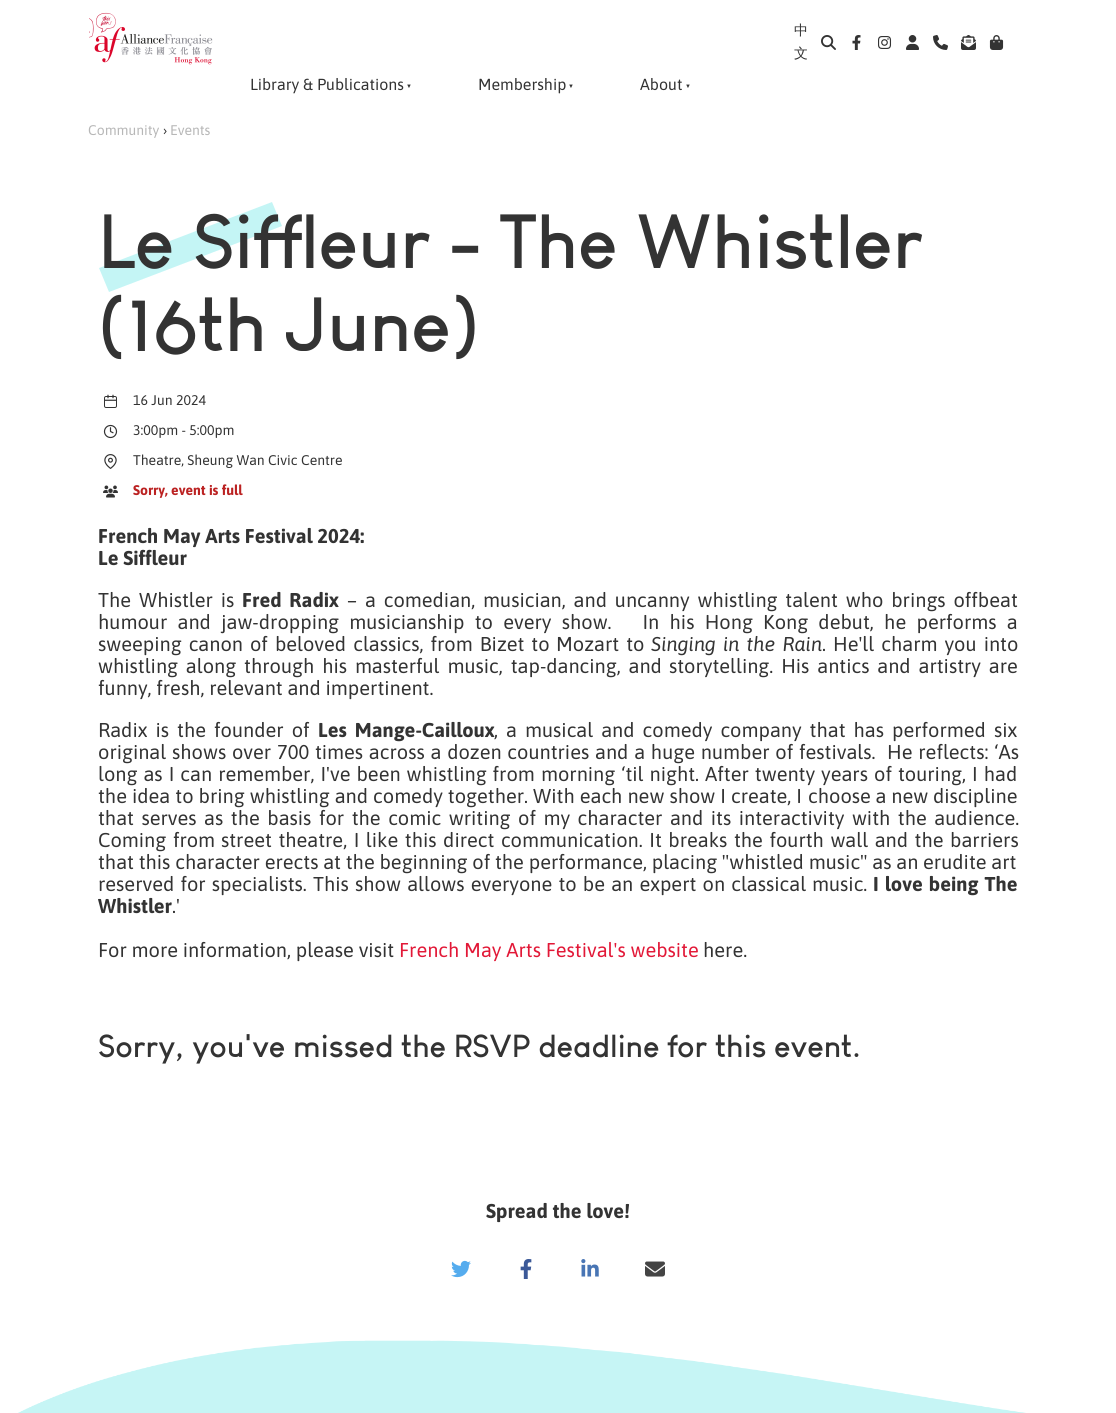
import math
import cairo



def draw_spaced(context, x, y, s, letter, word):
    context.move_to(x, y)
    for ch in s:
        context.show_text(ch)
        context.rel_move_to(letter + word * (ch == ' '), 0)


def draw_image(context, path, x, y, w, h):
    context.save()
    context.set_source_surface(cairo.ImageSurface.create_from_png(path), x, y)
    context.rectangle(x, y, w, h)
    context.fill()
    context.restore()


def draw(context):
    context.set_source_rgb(1, 1, 1)
    context.paint()
    draw_image(context, "images/1.png", 89, 12, 124, 53)
    draw_image(context, "images/2.png", 821, 35, 15, 15)
    draw_image(context, "images/3.png", 852, 35, 9, 15)
    draw_image(context, "images/4.png", 878, 36, 14, 13)
    draw_image(context, "images/5.png", 906, 35, 13, 15)
    draw_image(context, "images/6.png", 933, 35, 15, 15)
    draw_image(context, "images/7.png", 961, 35, 15, 15)
    draw_image(context, "images/8.png", 989, 35, 15, 15)
    context.set_source_rgb(196 / 255, 245 / 255, 245 / 255)
    context.new_path()
    context.move_to(99, 268)
    context.line_to(272, 202)
    context.line_to(282, 226)
    context.line_to(109, 292)
    context.close_path()
    context.fill()
    draw_image(context, "images/9.png", 104, 394, 13, 14)
    draw_image(context, "images/10.png", 103, 424, 15, 15)
    draw_image(context, "images/11.png", 104, 454, 13, 15)
    draw_image(context, "images/12.png", 103, 485, 15, 13)
    draw_image(context, "images/13.png", 451, 1260, 20, 18)
    draw_image(context, "images/14.png", 520, 1259, 12, 20)
    draw_image(context, "images/15.png", 581, 1259, 18, 18)
    draw_image(context, "images/16.png", 645, 1261, 20, 16)
    context.set_source_rgb(198 / 255, 245 / 255, 245 / 255)
    context.rectangle(18, 1340, 1008, 73)
    context.fill()
    draw_image(context, "images/17.png", 0, 1322, 1116, 91)
    context.select_font_face("WenQuanYi Zen Hei Medium")
    context.set_font_size(14)
    context.set_source_rgb(51 / 255, 51 / 255, 51 / 255)
    context.move_to(794, 35)
    context.show_text("中")
    context.move_to(794, 58)
    context.show_text("文")
    context.select_font_face("Asap")
    context.set_font_size(16)
    context.move_to(250, 90)
    context.show_text("Library & Publications")
    context.select_font_face("Liberation Sans")
    context.set_font_size(6)
    context.move_to(406, 88)
    context.show_text("▼")
    context.select_font_face("Asap")
    context.set_font_size(16)
    context.move_to(478, 90)
    context.show_text("Membership")
    context.select_font_face("Liberation Sans")
    context.set_font_size(6)
    context.move_to(568, 88)
    context.show_text("▼")
    context.select_font_face("Asap")
    context.set_font_size(16)
    context.move_to(640, 90)
    context.show_text("About")
    context.select_font_face("Liberation Sans")
    context.set_font_size(6)
    context.move_to(685, 88)
    context.show_text("▼")
    context.select_font_face("Asap")
    context.set_font_size(14)
    context.set_source_rgb(183 / 255, 183 / 255, 183 / 255)
    context.move_to(88, 135)
    context.show_text("Community")
    context.set_source_rgb(51 / 255, 51 / 255, 51 / 255)
    context.move_to(163, 135)
    context.show_text("›")
    context.set_source_rgb(183 / 255, 183 / 255, 183 / 255)
    context.move_to(170, 135)
    context.show_text("Events")
    context.select_font_face("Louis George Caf", cairo.FontSlant.NORMAL, cairo.FontWeight.BOLD)
    context.set_font_size(75)
    context.set_source_rgb(51 / 255, 51 / 255, 51 / 255)
    context.move_to(98, 268)
    context.show_text("Le Siffleur - The Whistler")
    context.move_to(98, 351)
    context.show_text("(16th June)")
    context.select_font_face("Asap")
    context.set_font_size(14)
    context.move_to(133, 405)
    context.show_text("16 Jun 2024")
    context.move_to(133, 435)
    context.show_text("3:00pm - 5:00pm")
    context.move_to(133, 465)
    context.show_text("Theatre, Sheung Wan Civic Centre")
    context.select_font_face("Asap", cairo.FontSlant.NORMAL, cairo.FontWeight.BOLD)
    context.set_source_rgb(187 / 255, 34 / 255, 34 / 255)
    context.move_to(133, 495)
    context.show_text("Sorry, event is full")
    context.set_font_size(20)
    context.set_source_rgb(51 / 255, 51 / 255, 51 / 255)
    context.move_to(98, 543)
    context.show_text("French May Arts Festival 2024:")
    context.move_to(98, 565)
    context.show_text("Le Siffleur")
    context.select_font_face("Asap")
    draw_spaced(context, 98, 607, "The Whistler is", 0, 3.1)
    context.select_font_face("Asap", cairo.FontSlant.NORMAL, cairo.FontWeight.BOLD)
    draw_spaced(context, 242, 607, "Fred Radix", 0, 3.1)
    context.select_font_face("Asap")
    draw_spaced(context, 347, 607, "– a comedian, musician, and uncanny whistling talent who brings offbeat", 0, 3.1)
    draw_spaced(context, 98, 629, "humour and", 0, 5.5)
    draw_spaced(context, 221, 629, "jaw-dropping musicianship to every show.   In his Hong Kong debut, he performs a", 0, 5.5)
    draw_spaced(context, 98, 651, "sweeping canon of beloved classics, from Bizet to", 0, 2.25)
    draw_spaced(context, 556, 651, "Mozart to", 0, 2.25)
    context.select_font_face("Asap", cairo.FontSlant.ITALIC)
    draw_spaced(context, 651, 651, "Singing in the Rain", 0, 2.25)
    context.select_font_face("Asap")
    draw_spaced(context, 822, 651, ". He'll charm you into", 0, 2.25)
    draw_spaced(context, 98, 673, "whistling along through his masterful music, tap-dancing, and", 0, 3.1)
    draw_spaced(context, 669, 673, "storytelling. His antics and artistry are", 0, 3.1)
    context.move_to(98, 695)
    context.show_text("funny, fresh, relevant and impertinent.")
    draw_spaced(context, 98, 737, "Radix is the founder of", 0, 3.25)
    context.select_font_face("Asap", cairo.FontSlant.NORMAL, cairo.FontWeight.BOLD)
    draw_spaced(context, 318, 737, "Les Mange-Cailloux", 0, 3.25)
    context.select_font_face("Asap")
    draw_spaced(context, 494, 737, ", a musical and comedy company that has performed six", 0, 3.25)
    draw_spaced(context, 98, 759, "original shows over", 0, 1)
    draw_spaced(context, 277, 759, "700 times across a dozen countries and a huge number of festivals.  He reflects: ‘As", 0, 1)
    draw_spaced(context, 98, 781, "long as I can remember, I've been whistling from", 0, 1.25)
    draw_spaced(context, 541, 781, "morning ‘til night. After twenty years of touring, I had", 0, 1.25)
    draw_spaced(context, 98, 803, "the idea to bring whistling and comedy together. With each new show I create, I", 0, 0.25)
    context.move_to(808, 803)
    context.show_text("choose a new discipline")
    draw_spaced(context, 98, 825, "that serves as the basis for the comic writing of my character and its interactivity with the audience.", 0, 2.75)
    draw_spaced(context, 98, 847, "Coming from", 0, 2)
    draw_spaced(context, 221, 847, "street theatre, I like this direct communication. It breaks the fourth wall and the barriers", 0, 1.75)
    context.move_to(98, 869)
    context.show_text("that this character erects at the beginning of the performance, placing \"whistled music\" as an erudite art")
    draw_spaced(context, 98, 891, "reserved for specialists. This show allows everyone to be an expert on classical", 0, 1.4)
    context.move_to(812, 891)
    context.show_text("music.")
    context.select_font_face("Asap", cairo.FontSlant.NORMAL, cairo.FontWeight.BOLD)
    draw_spaced(context, 873, 891, "I love being The", 0, 1.4)
    context.move_to(98, 913)
    context.show_text("Whistler")
    context.select_font_face("Asap")
    context.move_to(172, 913)
    context.show_text(".'")
    context.move_to(98, 957)
    context.show_text("For more information, please visit")
    context.set_source_rgb(226 / 255, 24 / 255, 55 / 255)
    context.move_to(399, 957)
    context.show_text("French May Arts Festival's website")
    context.set_source_rgb(51 / 255, 51 / 255, 51 / 255)
    context.move_to(703, 957)
    context.show_text("here.")
    context.select_font_face("Louis George Caf", cairo.FontSlant.NORMAL, cairo.FontWeight.BOLD)
    context.set_font_size(31.25)
    context.move_to(98, 1057)
    context.show_text("Sorry, you've missed the RSVP deadline for this event.")
    context.select_font_face("Asap", cairo.FontSlant.NORMAL, cairo.FontWeight.BOLD)
    context.set_font_size(20)
    context.move_to(486, 1218)
    context.show_text("Spread the love!")


surface = cairo.ImageSurface(cairo.Format.RGB24, 1116, 1413)
context = cairo.Context(surface)
options = cairo.FontOptions()
options.set_hint_metrics(cairo.HintMetrics.OFF)
options.set_hint_style(cairo.HintStyle.NONE)
context.set_font_options(options)
context.set_miter_limit(4)
draw(context)
surface.write_to_png("out.png")
